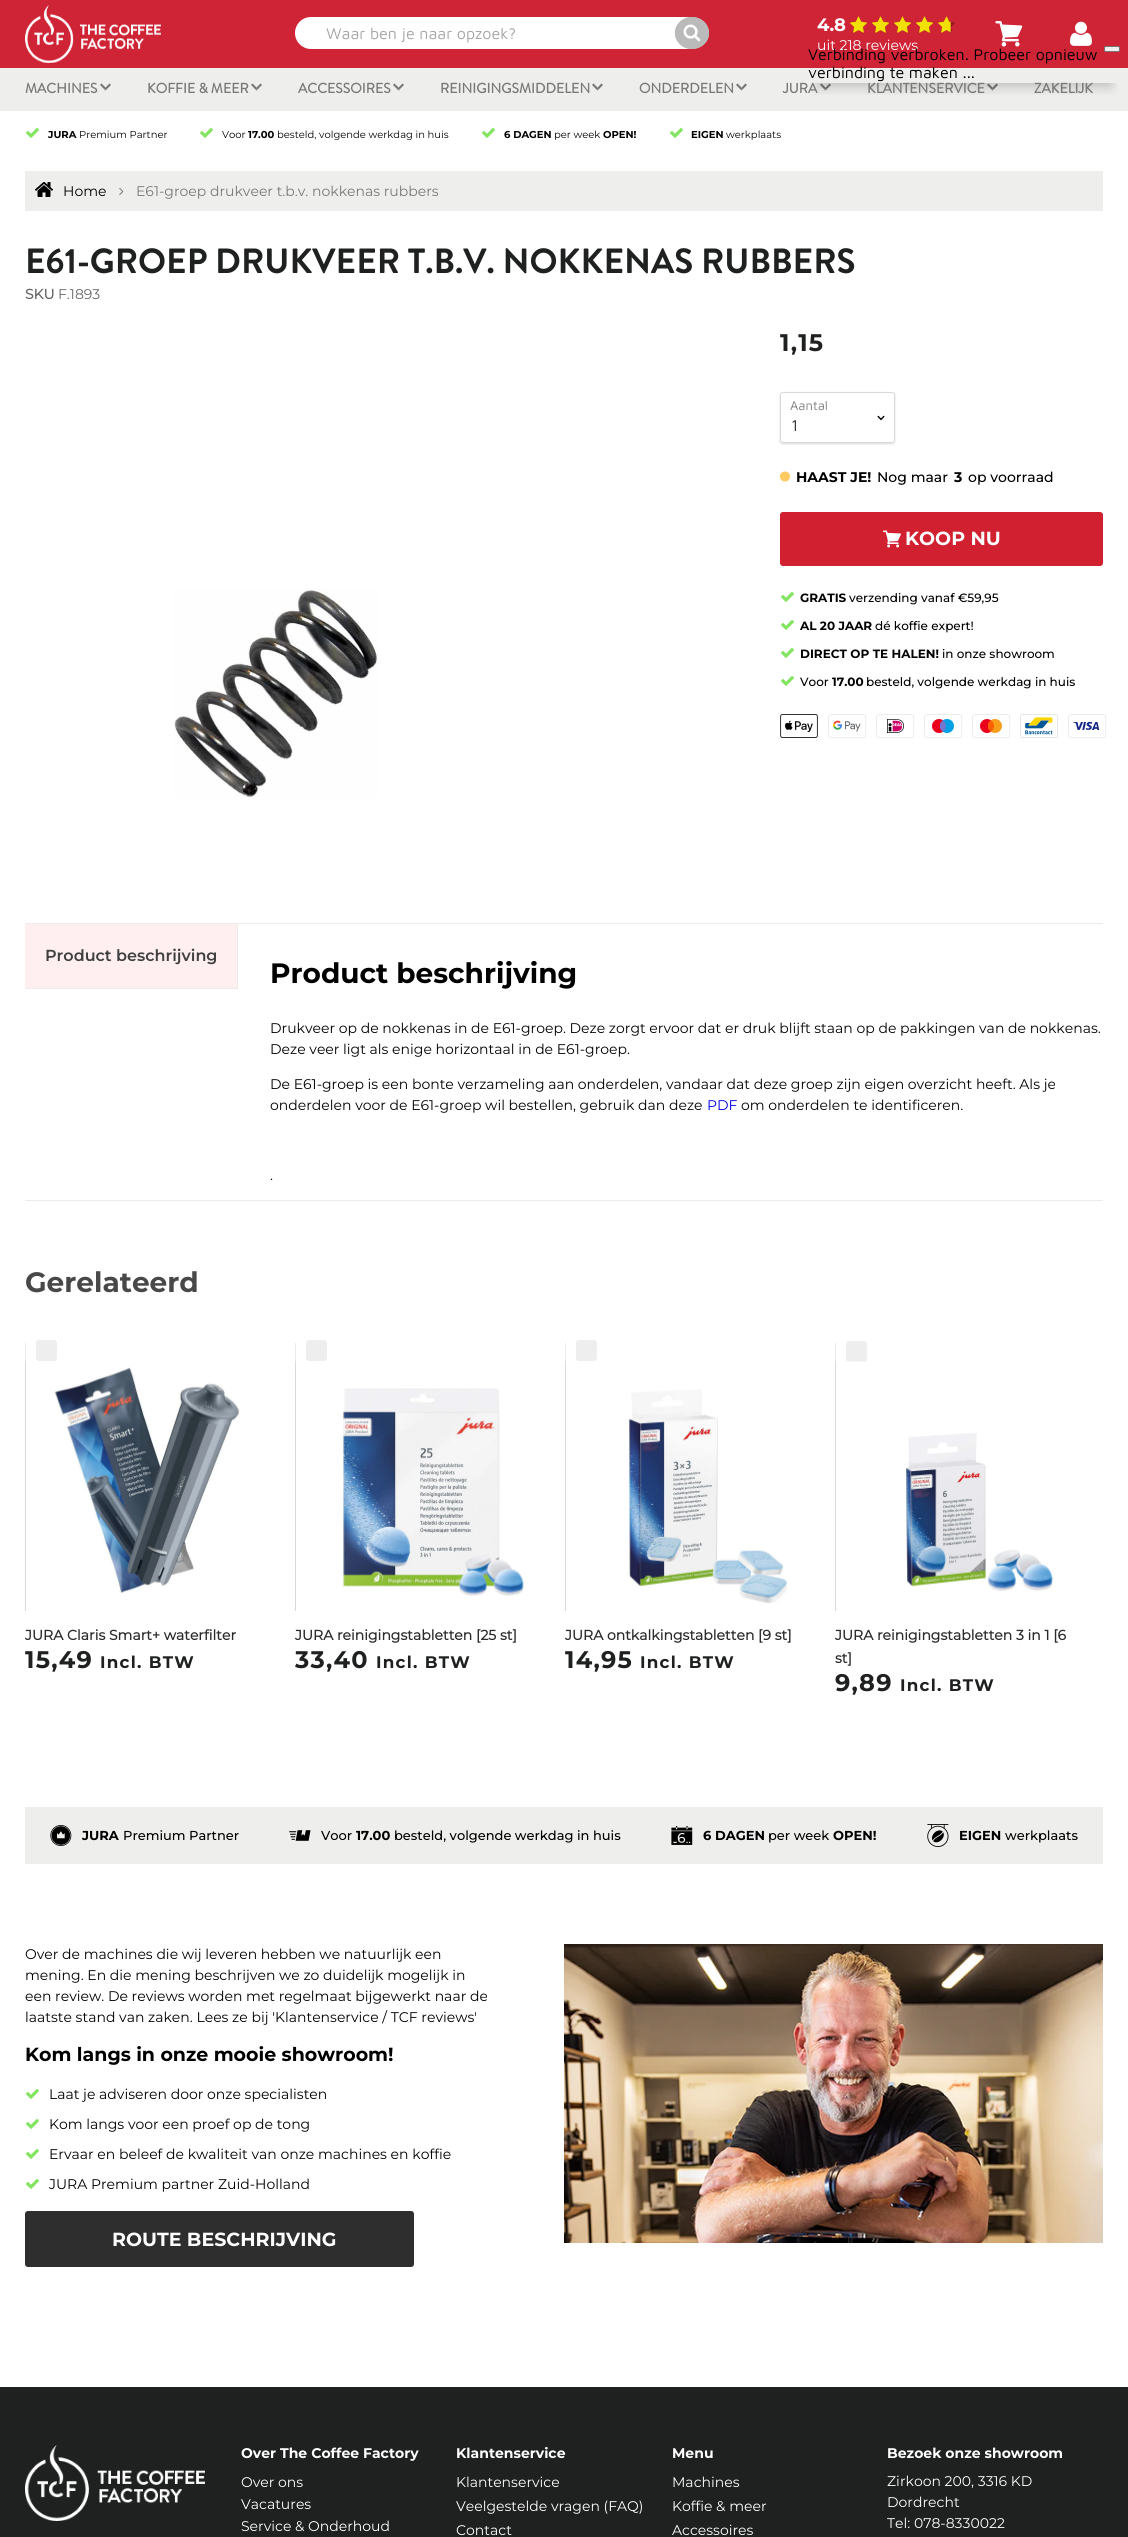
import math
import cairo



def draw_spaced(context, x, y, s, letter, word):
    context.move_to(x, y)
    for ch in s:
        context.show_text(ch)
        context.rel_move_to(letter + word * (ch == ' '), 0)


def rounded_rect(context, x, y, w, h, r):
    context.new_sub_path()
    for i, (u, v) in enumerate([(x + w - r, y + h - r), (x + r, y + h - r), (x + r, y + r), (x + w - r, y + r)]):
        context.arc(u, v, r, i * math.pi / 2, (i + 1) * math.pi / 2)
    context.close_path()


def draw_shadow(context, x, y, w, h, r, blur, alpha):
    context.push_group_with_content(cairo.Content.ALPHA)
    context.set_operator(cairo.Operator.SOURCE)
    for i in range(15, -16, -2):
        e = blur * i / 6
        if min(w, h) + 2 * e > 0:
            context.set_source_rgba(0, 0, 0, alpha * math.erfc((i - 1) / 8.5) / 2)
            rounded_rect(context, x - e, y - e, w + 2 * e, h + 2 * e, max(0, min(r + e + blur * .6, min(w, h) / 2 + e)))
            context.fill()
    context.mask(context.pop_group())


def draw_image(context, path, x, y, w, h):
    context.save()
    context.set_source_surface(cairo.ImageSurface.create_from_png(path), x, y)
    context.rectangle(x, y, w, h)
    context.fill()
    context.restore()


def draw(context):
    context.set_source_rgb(1, 1, 1)
    context.paint()
    context.set_source_rgb(207 / 255, 36 / 255, 53 / 255)
    context.rectangle(0, 0, 1128, 68)
    context.fill()
    draw_image(context, "images/1.png", 25, 5, 136, 58)
    context.set_source_rgb(1, 1, 1)
    rounded_rect(context, 295, 17, 410, 32, 16)
    context.fill()
    context.set_source_rgb(186 / 255, 186 / 255, 186 / 255)
    context.new_path()
    context.move_to(692, 17)
    context.curve_to(701.5, 17, 709, 24, 709, 33)
    context.curve_to(709, 42, 701.5, 49, 692, 49)
    context.curve_to(682.5, 49, 675, 42, 675, 33)
    context.curve_to(675, 24, 682.5, 17, 692, 17)
    context.close_path()
    context.fill()
    context.new_path()
    context.move_to(692, 17.5)
    context.curve_to(701, 17.5, 708.5, 24.5, 708.5, 33)
    context.curve_to(708.5, 41.5, 701, 48.5, 692, 48.5)
    context.curve_to(683, 48.5, 675.5, 41.5, 675.5, 33)
    context.curve_to(675.5, 24.5, 683, 17.5, 692, 17.5)
    context.close_path()
    context.set_line_width(1)
    context.stroke()
    draw_image(context, "images/2.png", 683, 24, 18, 18)
    draw_image(context, "images/3.png", 850, 16, 105, 17)
    draw_image(context, "images/4.png", 850, 16, 101, 17)
    draw_image(context, "images/5.png", 995, 21, 28, 26)
    draw_image(context, "images/6.png", 1070, 21, 22, 25)
    context.set_source_rgb(238 / 255, 238 / 255, 237 / 255)
    context.rectangle(0, 68, 1128, 43)
    context.fill()
    draw_image(context, "images/7.png", 100, 83, 11, 8)
    draw_image(context, "images/7.png", 251, 83, 11, 8)
    draw_image(context, "images/7.png", 393, 83, 11, 8)
    draw_image(context, "images/7.png", 592, 83, 11, 8)
    draw_image(context, "images/7.png", 736, 83, 11, 8)
    draw_image(context, "images/7.png", 820, 83, 11, 8)
    draw_image(context, "images/7.png", 987, 83, 11, 8)
    draw_image(context, "images/8.png", 26, 128, 13, 10)
    draw_image(context, "images/8.png", 200, 128, 13, 10)
    draw_image(context, "images/8.png", 482, 128, 13, 10)
    draw_image(context, "images/8.png", 670, 128, 13, 10)
    context.save()
    context.rectangle(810, 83, 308, 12)
    context.clip()
    context.set_source_rgb(0, 0, 0)
    draw_shadow(context, 818, 68, 292, 17, 0, 7, 0.25)
    context.restore()
    context.set_source_rgb(239 / 255, 239 / 255, 239 / 255)
    rounded_rect(context, 1104.5, 46.5, 15, 5, 1.5)
    context.fill_preserve()
    context.set_source_rgb(118 / 255, 118 / 255, 118 / 255)
    context.stroke()
    context.set_source_rgb(238 / 255, 238 / 255, 237 / 255)
    context.rectangle(25, 171, 1078, 40)
    context.fill()
    draw_image(context, "images/9.png", 35, 182, 18, 15)
    draw_image(context, "images/10.png", 119, 188, 5, 7)
    draw_image(context, "images/11.png", 174, 589, 204, 210)
    context.save()
    context.set_fill_rule(cairo.FillRule.EVEN_ODD)
    context.new_path()
    context.move_to(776, 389)
    context.line_to(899, 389)
    context.line_to(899, 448)
    context.line_to(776, 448)
    context.close_path()
    context.move_to(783, 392)
    context.line_to(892, 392)
    context.curve_to(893.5, 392, 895, 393.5, 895, 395)
    context.line_to(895, 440)
    context.curve_to(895, 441.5, 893.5, 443, 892, 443)
    context.line_to(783, 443)
    context.curve_to(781.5, 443, 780, 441.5, 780, 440)
    context.line_to(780, 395)
    context.curve_to(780, 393.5, 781.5, 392, 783, 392)
    context.close_path()
    context.clip()
    context.set_source_rgb(0, 0, 0)
    draw_shadow(context, 780, 393, 115, 51, 3, 1, 0.15)
    context.restore()
    rounded_rect(context, 780.5, 392.5, 114, 50, 2.5)
    context.set_source_rgba(127 / 255, 127 / 255, 127 / 255, 0.3)
    context.stroke()
    draw_image(context, "images/12.png", 877, 415, 8, 6)
    context.set_source_rgb(1, 202 / 255, 98 / 255)
    context.arc(785, 476.5, 5, 0, 2 * math.pi)
    context.fill()
    context.set_source_rgb(209 / 255, 33 / 255, 49 / 255)
    rounded_rect(context, 780.5, 512.5, 322, 53, 2.5)
    context.fill_preserve()
    context.stroke()
    draw_image(context, "images/13.png", 883, 530, 18, 18)
    draw_image(context, "images/8.png", 781, 592, 13, 10)
    draw_image(context, "images/8.png", 781, 620, 13, 10)
    draw_image(context, "images/8.png", 781, 648, 13, 10)
    draw_image(context, "images/8.png", 781, 676, 13, 10)
    draw_image(context, "images/14.png", 780, 714, 38, 24)
    draw_image(context, "images/15.png", 828, 714, 38, 24)
    draw_image(context, "images/16.png", 876, 714, 38, 24)
    draw_image(context, "images/17.png", 924, 714, 38, 24)
    draw_image(context, "images/18.png", 972, 714, 38, 24)
    rounded_rect(context, 1020.5, 714.5, 37, 23, 1.5)
    context.set_source_rgb(230 / 255, 230 / 255, 230 / 255)
    context.stroke()
    context.set_source_rgb(1, 1, 1)
    context.rectangle(1021, 715, 36, 22)
    context.fill()
    draw_image(context, "images/19.png", 1025, 717, 28, 18)
    draw_image(context, "images/20.png", 1068, 714, 38, 24)
    context.set_source_rgb(235 / 255, 235 / 255, 235 / 255)
    context.rectangle(25, 923, 1078, 1)
    context.fill()
    context.rectangle(25, 1200, 1078, 1)
    context.fill()
    context.rectangle(237, 924, 1, 65)
    context.fill()
    context.set_source_rgb(1, 239 / 255, 240 / 255)
    context.rectangle(25, 924, 212, 64)
    context.fill()
    context.set_source_rgb(235 / 255, 235 / 255, 235 / 255)
    context.rectangle(25, 988, 212, 1)
    context.fill()
    context.set_source_rgb(238 / 255, 238 / 255, 238 / 255)
    rounded_rect(context, 36, 1340, 21, 21, 3)
    context.fill()
    context.set_source_rgb(235 / 255, 235 / 255, 235 / 255)
    context.rectangle(25, 1343, 1, 18)
    context.fill()
    context.set_source_rgb(218 / 255, 218 / 255, 218 / 255)
    context.rectangle(25, 1361, 1, 250)
    context.fill()
    draw_image(context, "images/21.png", 54, 1367, 186, 226)
    context.set_source_rgb(238 / 255, 238 / 255, 238 / 255)
    rounded_rect(context, 306, 1340, 21, 21, 3)
    context.fill()
    context.set_source_rgb(235 / 255, 235 / 255, 235 / 255)
    context.rectangle(295, 1343, 1, 18)
    context.fill()
    context.set_source_rgb(218 / 255, 218 / 255, 218 / 255)
    context.rectangle(295, 1361, 1, 250)
    context.fill()
    draw_image(context, "images/22.png", 342, 1388, 182, 208)
    context.set_source_rgb(238 / 255, 238 / 255, 238 / 255)
    rounded_rect(context, 576, 1340, 21, 21, 3)
    context.fill()
    context.set_source_rgb(235 / 255, 235 / 255, 235 / 255)
    context.rectangle(565, 1343, 1, 18)
    context.fill()
    context.set_source_rgb(218 / 255, 218 / 255, 218 / 255)
    context.rectangle(565, 1361, 1, 250)
    context.fill()
    draw_image(context, "images/23.png", 628, 1389, 160, 215)
    context.set_source_rgb(238 / 255, 238 / 255, 238 / 255)
    rounded_rect(context, 846, 1341, 21, 21, 3)
    context.fill()
    context.set_source_rgb(235 / 255, 235 / 255, 235 / 255)
    context.rectangle(835, 1343, 1, 18)
    context.fill()
    context.set_source_rgb(218 / 255, 218 / 255, 218 / 255)
    context.rectangle(835, 1361, 1, 250)
    context.fill()
    draw_image(context, "images/24.png", 847, 1361, 207, 230)
    context.set_source_rgb(238 / 255, 238 / 255, 237 / 255)
    context.rectangle(25, 1807, 1078, 57)
    context.fill()
    draw_image(context, "images/25.png", 50, 1825, 22, 21)
    draw_image(context, "images/26.png", 289, 1830, 22, 11)
    draw_image(context, "images/27.png", 671, 1826, 22, 19)
    draw_image(context, "images/28.png", 927, 1824, 22, 23)
    draw_image(context, "images/8.png", 26, 2089, 13, 10)
    draw_image(context, "images/8.png", 26, 2119, 13, 10)
    draw_image(context, "images/8.png", 26, 2149, 13, 10)
    draw_image(context, "images/8.png", 26, 2179, 13, 10)
    context.set_source_rgb(46 / 255, 46 / 255, 46 / 255)
    rounded_rect(context, 25.5, 2211.5, 388, 55, 2.5)
    context.fill_preserve()
    context.stroke()
    draw_image(context, "images/29.png", 564, 1944, 539, 299)
    context.set_source_rgb(31 / 255, 32 / 255, 32 / 255)
    context.rectangle(0, 2387, 1128, 150)
    context.fill()
    draw_image(context, "images/30.png", 25, 2445, 180, 76)
    context.select_font_face("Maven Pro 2")
    context.set_font_size(16)
    context.set_source_rgb(165 / 255, 166 / 255, 166 / 255)
    context.move_to(326, 39)
    context.show_text("Waar ben je naar opzoek?")
    context.select_font_face("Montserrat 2", cairo.FontSlant.NORMAL, cairo.FontWeight.BOLD)
    context.set_font_size(18)
    context.set_source_rgb(1, 1, 1)
    context.move_to(817, 31)
    context.show_text("4.8")
    context.select_font_face("Montserrat")
    context.set_font_size(14)
    context.move_to(817, 50)
    context.show_text("uit 218 reviews")
    context.select_font_face("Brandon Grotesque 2", cairo.FontSlant.NORMAL, cairo.FontWeight.BOLD)
    context.set_source_rgb(121 / 255, 121 / 255, 121 / 255)
    context.move_to(25, 93)
    context.show_text("MACHINES")
    context.move_to(147, 93)
    context.show_text("KOFFIE & MEER")
    context.move_to(298, 93)
    context.show_text("ACCESSOIRES")
    context.move_to(440, 93)
    context.show_text("REINIGINGSMIDDELEN")
    context.move_to(639, 93)
    context.show_text("ONDERDELEN")
    context.move_to(783, 93)
    context.show_text("JURA")
    context.move_to(867, 93)
    context.show_text("KLANTENSERVICE")
    context.move_to(1034, 93)
    context.show_text("ZAKELIJK")
    context.select_font_face("Montserrat", cairo.FontSlant.NORMAL, cairo.FontWeight.BOLD)
    context.set_font_size(10)
    context.set_source_rgb(0, 0, 0)
    context.move_to(48, 138)
    context.show_text("JURA")
    context.select_font_face("Montserrat")
    context.move_to(79, 138)
    context.show_text("Premium Partner")
    context.move_to(222, 138)
    context.show_text("Voor")
    context.select_font_face("Montserrat", cairo.FontSlant.NORMAL, cairo.FontWeight.BOLD)
    context.move_to(248, 138)
    context.show_text("17.00")
    context.select_font_face("Montserrat")
    context.move_to(277, 138)
    context.show_text("besteld, volgende werkdag in huis")
    context.select_font_face("Montserrat", cairo.FontSlant.NORMAL, cairo.FontWeight.BOLD)
    context.move_to(504, 138)
    context.show_text("6 DAGEN")
    context.select_font_face("Montserrat")
    context.move_to(554, 138)
    context.show_text("per week")
    context.select_font_face("Montserrat", cairo.FontSlant.NORMAL, cairo.FontWeight.BOLD)
    context.move_to(603, 138)
    context.show_text("OPEN!")
    context.move_to(691, 138)
    context.show_text("EIGEN")
    context.select_font_face("Montserrat")
    context.move_to(726, 138)
    context.show_text("werkplaats")
    context.select_font_face("Maven Pro")
    context.set_font_size(16)
    context.move_to(808, 60)
    context.show_text("Verbinding verbroken. Probeer opnieuw")
    context.move_to(808, 78)
    context.show_text("verbinding te maken ...")
    context.select_font_face("Montserrat")
    context.set_font_size(14)
    context.move_to(63, 196)
    context.show_text("Home")
    context.set_source_rgb(121 / 255, 121 / 255, 121 / 255)
    context.move_to(136, 196)
    context.show_text("E61-groep drukveer t.b.v. nokkenas rubbers")
    context.select_font_face("Brandon Grotesque", cairo.FontSlant.NORMAL, cairo.FontWeight.BOLD)
    context.set_font_size(35)
    context.set_source_rgb(31 / 255, 32 / 255, 32 / 255)
    context.move_to(25, 273)
    context.show_text("E61-GROEP DRUKVEER T.B.V. NOKKENAS RUBBERS")
    context.select_font_face("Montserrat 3", cairo.FontSlant.NORMAL, cairo.FontWeight.BOLD)
    context.set_font_size(14)
    context.set_source_rgb(102 / 255, 102 / 255, 102 / 255)
    context.move_to(25, 299)
    context.show_text("SKU")
    context.select_font_face("Montserrat")
    context.move_to(58, 299)
    context.show_text("F.1893")
    context.select_font_face("Montserrat", cairo.FontSlant.NORMAL, cairo.FontWeight.BOLD)
    context.set_font_size(24)
    context.set_source_rgb(31 / 255, 32 / 255, 32 / 255)
    draw_spaced(context, 780, 351, "1,15", 1.25, 0)
    context.select_font_face("Maven Pro")
    context.set_font_size(13)
    context.set_source_rgb(128 / 255, 128 / 255, 128 / 255)
    context.move_to(790, 410)
    context.show_text("Aantal")
    context.set_font_size(16)
    context.set_source_rgb(43 / 255, 43 / 255, 43 / 255)
    context.move_to(791, 431)
    context.show_text("1")
    context.select_font_face("Montserrat 2", cairo.FontSlant.NORMAL, cairo.FontWeight.BOLD)
    context.set_font_size(14)
    context.set_source_rgb(0, 0, 0)
    context.move_to(796, 482)
    context.show_text("HAAST JE!")
    context.select_font_face("Montserrat Medium")
    context.move_to(877, 482)
    context.show_text("Nog maar")
    context.select_font_face("Montserrat 2", cairo.FontSlant.NORMAL, cairo.FontWeight.BOLD)
    context.move_to(954, 482)
    context.show_text("3")
    context.select_font_face("Montserrat Medium")
    context.move_to(968, 482)
    context.show_text("op voorraad")
    context.select_font_face("Montserrat", cairo.FontSlant.NORMAL, cairo.FontWeight.BOLD)
    context.set_font_size(19)
    context.set_source_rgb(1, 1, 1)
    context.move_to(905, 545)
    context.show_text("KOOP NU")
    context.set_font_size(12)
    context.set_source_rgb(0, 0, 0)
    context.move_to(800, 602)
    context.show_text("GRATIS")
    context.select_font_face("Montserrat Medium")
    context.move_to(849, 602)
    context.show_text("verzending vanaf €59,95")
    context.select_font_face("Montserrat", cairo.FontSlant.NORMAL, cairo.FontWeight.BOLD)
    context.move_to(800, 630)
    context.show_text("AL 20 JAAR")
    context.select_font_face("Montserrat Medium")
    context.move_to(875, 630)
    context.show_text("dé koffie expert!")
    context.select_font_face("Montserrat", cairo.FontSlant.NORMAL, cairo.FontWeight.BOLD)
    context.move_to(800, 658)
    context.show_text("DIRECT OP TE HALEN!")
    context.select_font_face("Montserrat Medium")
    context.move_to(942, 658)
    context.show_text("in onze showroom")
    context.move_to(800, 686)
    context.show_text("Voor")
    context.select_font_face("Montserrat", cairo.FontSlant.NORMAL, cairo.FontWeight.BOLD)
    context.move_to(832, 686)
    context.show_text("17.00")
    context.select_font_face("Montserrat Medium")
    context.move_to(866, 686)
    context.show_text("besteld, volgende werkdag in huis")
    context.select_font_face("Montserrat SemiBold")
    context.set_font_size(16)
    context.set_source_rgb(64 / 255, 64 / 255, 64 / 255)
    context.move_to(45, 961)
    context.show_text("Product beschrijving")
    context.select_font_face("Montserrat 2", cairo.FontSlant.NORMAL, cairo.FontWeight.BOLD)
    context.set_font_size(28)
    context.set_source_rgb(0, 0, 0)
    context.move_to(270, 983)
    context.show_text("Product beschrijving")
    context.select_font_face("Montserrat")
    context.set_font_size(14)
    context.move_to(270, 1033)
    context.show_text("Drukveer op de nokkenas in de E61-groep. Deze zorgt ervoor dat er druk blijft staan op de pakkingen van de nokkenas.")
    context.move_to(270, 1054)
    context.show_text("Deze veer ligt als enige horizontaal in de E61-groep.")
    context.move_to(270, 1089)
    context.show_text("De E61-groep is een bonte verzameling aan onderdelen, vandaar dat deze groep zijn eigen overzicht heeft. Als je")
    context.move_to(270, 1110)
    context.show_text("onderdelen voor de E61-groep wil bestellen, gebruik dan deze")
    context.set_source_rgb(0, 0, 238 / 255)
    context.move_to(707, 1110)
    context.show_text("PDF")
    context.set_source_rgb(0, 0, 0)
    context.move_to(741, 1110)
    context.show_text("om onderdelen te identificeren.")
    context.move_to(270, 1180)
    context.show_text(".")
    context.select_font_face("Montserrat", cairo.FontSlant.NORMAL, cairo.FontWeight.BOLD)
    context.set_font_size(28)
    context.set_source_rgb(72 / 255, 72 / 255, 72 / 255)
    context.move_to(25, 1292)
    context.show_text("Gerelateerd")
    context.select_font_face("Montserrat 3", cairo.FontSlant.NORMAL, cairo.FontWeight.BOLD)
    context.set_font_size(14)
    context.set_source_rgb(43 / 255, 43 / 255, 43 / 255)
    context.move_to(25, 1640)
    context.show_text("JURA Claris Smart+ waterfilter")
    context.select_font_face("Montserrat", cairo.FontSlant.NORMAL, cairo.FontWeight.BOLD)
    context.set_font_size(24)
    context.set_source_rgb(31 / 255, 32 / 255, 32 / 255)
    draw_spaced(context, 25, 1668, "15,49", 1.25, 0)
    context.set_font_size(16.75)
    draw_spaced(context, 100, 1668, "Incl. BTW", 1.25, 0)
    context.select_font_face("Montserrat 3", cairo.FontSlant.NORMAL, cairo.FontWeight.BOLD)
    context.set_font_size(14)
    context.set_source_rgb(43 / 255, 43 / 255, 43 / 255)
    context.move_to(295, 1640)
    context.show_text("JURA reinigingstabletten [25 st]")
    context.select_font_face("Montserrat", cairo.FontSlant.NORMAL, cairo.FontWeight.BOLD)
    context.set_font_size(24)
    context.set_source_rgb(31 / 255, 32 / 255, 32 / 255)
    draw_spaced(context, 295, 1668, "33,40", 1.25, 0)
    context.set_font_size(16.75)
    draw_spaced(context, 376, 1668, "Incl. BTW", 1.25, 0)
    context.select_font_face("Montserrat 3", cairo.FontSlant.NORMAL, cairo.FontWeight.BOLD)
    context.set_font_size(14)
    context.set_source_rgb(43 / 255, 43 / 255, 43 / 255)
    context.move_to(565, 1640)
    context.show_text("JURA ontkalkingstabletten [9 st]")
    context.select_font_face("Montserrat", cairo.FontSlant.NORMAL, cairo.FontWeight.BOLD)
    context.set_font_size(24)
    context.set_source_rgb(31 / 255, 32 / 255, 32 / 255)
    draw_spaced(context, 565, 1668, "14,95", 1.25, 0)
    context.set_font_size(16.75)
    draw_spaced(context, 640, 1668, "Incl. BTW", 1.25, 0)
    context.select_font_face("Montserrat 3", cairo.FontSlant.NORMAL, cairo.FontWeight.BOLD)
    context.set_font_size(14)
    context.set_source_rgb(43 / 255, 43 / 255, 43 / 255)
    context.move_to(835, 1640)
    context.show_text("JURA reinigingstabletten 3 in 1 [6")
    context.move_to(835, 1663)
    context.show_text("st]")
    context.select_font_face("Montserrat", cairo.FontSlant.NORMAL, cairo.FontWeight.BOLD)
    context.set_font_size(24)
    context.set_source_rgb(31 / 255, 32 / 255, 32 / 255)
    draw_spaced(context, 835, 1691, "9,89", 1.25, 0)
    context.set_font_size(16.75)
    draw_spaced(context, 900, 1691, "Incl. BTW", 1.25, 0)
    context.select_font_face("Montserrat 2", cairo.FontSlant.NORMAL, cairo.FontWeight.BOLD)
    context.set_font_size(13)
    context.set_source_rgb(0, 0, 0)
    context.move_to(82, 1840)
    context.show_text("JURA")
    context.select_font_face("Montserrat Medium")
    context.move_to(123, 1840)
    context.show_text("Premium Partner")
    context.move_to(321, 1840)
    context.show_text("Voor")
    context.select_font_face("Montserrat 2", cairo.FontSlant.NORMAL, cairo.FontWeight.BOLD)
    context.move_to(356, 1840)
    context.show_text("17.00")
    context.select_font_face("Montserrat Medium")
    context.move_to(394, 1840)
    context.show_text("besteld, volgende werkdag in huis")
    context.select_font_face("Montserrat 2", cairo.FontSlant.NORMAL, cairo.FontWeight.BOLD)
    context.move_to(703, 1840)
    context.show_text("6 DAGEN")
    context.select_font_face("Montserrat Medium")
    context.move_to(768, 1840)
    context.show_text("per week")
    context.select_font_face("Montserrat 2", cairo.FontSlant.NORMAL, cairo.FontWeight.BOLD)
    context.move_to(833, 1840)
    context.show_text("OPEN!")
    context.move_to(959, 1840)
    context.show_text("EIGEN")
    context.select_font_face("Montserrat Medium")
    context.move_to(1005, 1840)
    context.show_text("werkplaats")
    context.select_font_face("Montserrat")
    context.set_font_size(14)
    context.move_to(25, 1959)
    context.show_text("Over de machines die wij leveren hebben we natuurlijk een")
    context.move_to(25, 1980)
    context.show_text("mening. En die mening beschrijven we zo duidelijk mogelijk in")
    context.move_to(25, 2001)
    context.show_text("een review. De reviews worden met regelmaat bijgewerkt naar de")
    context.move_to(25, 2022)
    context.show_text("laatste stand van zaken. Lees ze bij 'Klantenservice / TCF reviews'")
    context.select_font_face("Montserrat", cairo.FontSlant.NORMAL, cairo.FontWeight.BOLD)
    context.set_font_size(19)
    context.move_to(25, 2061)
    context.show_text("Kom langs in onze mooie showroom!")
    context.select_font_face("Montserrat")
    context.set_font_size(14)
    context.move_to(49, 2099)
    context.show_text("Laat je adviseren door onze specialisten")
    context.move_to(49, 2129)
    context.show_text("Kom langs voor een proef op de tong")
    context.move_to(49, 2159)
    context.show_text("Ervaar en beleef de kwaliteit van onze machines en koffie")
    context.move_to(49, 2189)
    context.show_text("JURA Premium partner Zuid-Holland")
    context.select_font_face("Montserrat", cairo.FontSlant.NORMAL, cairo.FontWeight.BOLD)
    context.set_font_size(19)
    context.set_source_rgb(1, 1, 1)
    context.move_to(112, 2246)
    context.show_text("ROUTE BESCHRIJVING")
    context.set_font_size(14)
    context.move_to(241, 2458)
    context.show_text("Over The Coffee Factory")
    context.select_font_face("Montserrat")
    context.move_to(241, 2487)
    context.show_text("Over ons")
    context.move_to(241, 2509)
    context.show_text("Vacatures")
    context.move_to(241, 2531)
    context.show_text("Service & Onderhoud")
    context.select_font_face("Montserrat", cairo.FontSlant.NORMAL, cairo.FontWeight.BOLD)
    context.move_to(456, 2458)
    context.show_text("Klantenservice")
    context.select_font_face("Montserrat")
    context.move_to(456, 2487)
    context.show_text("Klantenservice")
    context.move_to(456, 2511)
    context.show_text("Veelgestelde vragen (FAQ)")
    context.move_to(456, 2535)
    context.show_text("Contact")
    context.select_font_face("Montserrat", cairo.FontSlant.NORMAL, cairo.FontWeight.BOLD)
    context.move_to(672, 2458)
    context.show_text("Menu")
    context.select_font_face("Montserrat")
    context.move_to(672, 2487)
    context.show_text("Machines")
    context.move_to(672, 2511)
    context.show_text("Koffie & meer")
    context.move_to(672, 2535)
    context.show_text("Accessoires")
    context.select_font_face("Montserrat", cairo.FontSlant.NORMAL, cairo.FontWeight.BOLD)
    context.move_to(887, 2458)
    context.show_text("Bezoek onze showroom")
    context.select_font_face("Montserrat")
    context.move_to(887, 2486)
    context.show_text("Zirkoon 200, 3316 KD")
    context.move_to(887, 2507)
    context.show_text("Dordrecht")
    context.move_to(887, 2528)
    context.show_text("Tel: 078-8330022")


surface = cairo.ImageSurface(cairo.Format.RGB24, 1128, 2537)
context = cairo.Context(surface)
options = cairo.FontOptions()
options.set_hint_metrics(cairo.HintMetrics.OFF)
options.set_hint_style(cairo.HintStyle.NONE)
context.set_font_options(options)
context.set_miter_limit(4)
draw(context)
surface.write_to_png("out.png")
